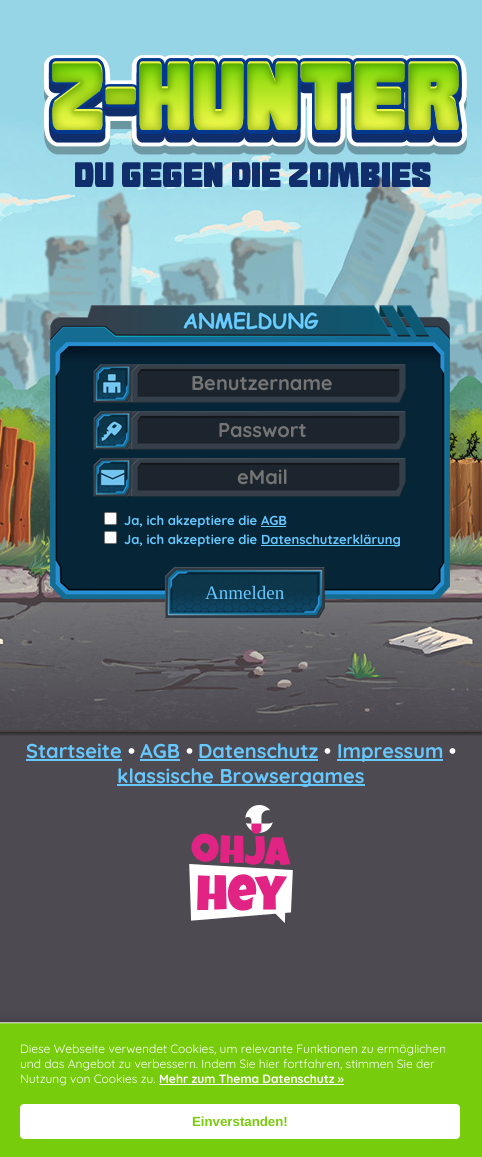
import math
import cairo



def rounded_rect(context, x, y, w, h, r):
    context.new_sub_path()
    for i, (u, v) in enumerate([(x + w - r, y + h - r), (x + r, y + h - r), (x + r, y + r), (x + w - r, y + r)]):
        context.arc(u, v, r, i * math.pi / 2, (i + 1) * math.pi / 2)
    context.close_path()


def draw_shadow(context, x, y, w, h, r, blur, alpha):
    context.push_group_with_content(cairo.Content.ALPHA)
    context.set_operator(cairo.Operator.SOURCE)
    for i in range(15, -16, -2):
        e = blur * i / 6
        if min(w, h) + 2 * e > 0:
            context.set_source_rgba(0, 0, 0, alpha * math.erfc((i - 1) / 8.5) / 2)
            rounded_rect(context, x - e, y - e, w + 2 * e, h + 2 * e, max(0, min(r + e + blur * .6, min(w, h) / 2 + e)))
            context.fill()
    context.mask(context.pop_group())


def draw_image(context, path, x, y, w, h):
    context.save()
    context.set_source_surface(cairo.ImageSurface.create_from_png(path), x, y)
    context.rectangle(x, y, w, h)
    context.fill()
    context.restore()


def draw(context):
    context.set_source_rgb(77 / 255, 74 / 255, 81 / 255)
    context.paint()
    draw_image(context, "images/1.png", 0, 0, 482, 736)
    draw_image(context, "images/2.png", 44, 55, 423, 132)
    draw_image(context, "images/3.png", 50, 305, 400, 294)
    context.set_source_rgb(1, 1, 1)
    rounded_rect(context, 104.5, 512.5, 12, 12, 1.5)
    context.fill_preserve()
    context.set_source_rgb(118 / 255, 118 / 255, 118 / 255)
    context.set_line_width(1)
    context.stroke()
    context.set_source_rgb(102 / 255, 200 / 255, 1)
    context.rectangle(261, 526, 25, 1)
    context.fill()
    context.set_source_rgb(1, 1, 1)
    rounded_rect(context, 104.5, 531.5, 12, 12, 1.5)
    context.fill_preserve()
    context.set_source_rgb(118 / 255, 118 / 255, 118 / 255)
    context.stroke()
    context.set_source_rgb(102 / 255, 200 / 255, 1)
    context.rectangle(261, 545, 139, 1)
    context.fill()
    draw_image(context, "images/4.png", 165, 567, 160, 51)
    context.rectangle(26, 759, 96, 2)
    context.fill()
    context.rectangle(140, 759, 40, 2)
    context.fill()
    context.rectangle(198, 759, 120, 2)
    context.fill()
    context.rectangle(337, 759, 106, 2)
    context.fill()
    context.rectangle(117, 784, 248, 2)
    context.fill()
    draw_image(context, "images/5.png", 189, 805, 104, 118)
    context.set_source_rgb(0, 0, 0)
    draw_shadow(context, 0, 1022, 482, 135, 0, 5, 0.25)
    context.set_source_rgb(119 / 255, 204 / 255, 11 / 255)
    context.rectangle(0, 1024, 482, 133)
    context.fill()
    context.set_source_rgb(153 / 255, 217 / 255, 72 / 255)
    context.rectangle(0, 1023, 482, 1)
    context.fill()
    context.set_source_rgb(191 / 255, 191 / 255, 191 / 255)
    context.rectangle(0, 1022, 482, 1)
    context.fill()
    context.set_source_rgb(1, 1, 1)
    context.rectangle(159, 1084, 185, 1)
    context.fill()
    rounded_rect(context, 20.5, 1104.5, 439, 34, 3.5)
    context.fill_preserve()
    context.stroke()
    context.select_font_face("Quicksand", cairo.FontSlant.NORMAL, cairo.FontWeight.BOLD)
    context.set_font_size(20)
    context.set_source_rgb(117 / 255, 117 / 255, 117 / 255)
    context.move_to(191, 390)
    context.show_text("Benutzername")
    context.move_to(218, 437)
    context.show_text("Passwort")
    context.move_to(237, 484)
    context.show_text("eMail")
    context.set_font_size(13)
    context.set_source_rgb(102 / 255, 200 / 255, 1)
    context.move_to(124, 525)
    context.show_text("Ja, ich akzeptiere die AGB")
    context.move_to(124, 544)
    context.show_text("Ja, ich akzeptiere die")
    context.move_to(261, 544)
    context.show_text("Datenschutzerklärung")
    context.select_font_face("Liberation Serif")
    context.set_font_size(19)
    context.move_to(205, 599)
    context.show_text("Anmelden")
    context.select_font_face("Quicksand", cairo.FontSlant.NORMAL, cairo.FontWeight.BOLD)
    context.set_font_size(20)
    context.move_to(26, 758)
    context.show_text("Startseite")
    context.set_source_rgb(1, 1, 1)
    context.move_to(128, 758)
    context.show_text("•")
    context.set_source_rgb(102 / 255, 200 / 255, 1)
    context.move_to(140, 758)
    context.show_text("AGB")
    context.set_source_rgb(1, 1, 1)
    context.move_to(186, 758)
    context.show_text("•")
    context.set_source_rgb(102 / 255, 200 / 255, 1)
    context.move_to(198, 758)
    context.show_text("Datenschutz")
    context.set_source_rgb(1, 1, 1)
    context.move_to(324, 758)
    context.show_text("•")
    context.set_source_rgb(102 / 255, 200 / 255, 1)
    context.move_to(337, 758)
    context.show_text("Impressum")
    context.set_source_rgb(1, 1, 1)
    context.move_to(449, 758)
    context.show_text("•")
    context.set_source_rgb(102 / 255, 200 / 255, 1)
    context.move_to(117, 783)
    context.show_text("klassische Browsergames")
    context.select_font_face("Quicksand")
    context.set_font_size(12)
    context.set_source_rgb(1, 1, 1)
    context.move_to(20, 1053)
    context.show_text("Diese Webseite verwendet Cookies, um relevante Funktionen zu ermöglichen")
    context.move_to(20, 1068)
    context.show_text("und das Angebot zu verbessern. Indem Sie hier fortfahren, stimmen Sie der")
    context.move_to(20, 1083)
    context.show_text("Nutzung von Cookies zu.")
    context.select_font_face("Quicksand", cairo.FontSlant.NORMAL, cairo.FontWeight.BOLD)
    context.move_to(159, 1083)
    context.show_text("Mehr zum Thema Datenschutz »")
    context.select_font_face("Liberation Sans", cairo.FontSlant.NORMAL, cairo.FontWeight.BOLD)
    context.set_font_size(13.25)
    context.set_source_rgb(119 / 255, 204 / 255, 11 / 255)
    context.move_to(192, 1126)
    context.show_text("Einverstanden!")


surface = cairo.ImageSurface(cairo.Format.RGB24, 482, 1157)
context = cairo.Context(surface)
options = cairo.FontOptions()
options.set_hint_metrics(cairo.HintMetrics.OFF)
options.set_hint_style(cairo.HintStyle.NONE)
context.set_font_options(options)
context.set_miter_limit(4)
draw(context)
surface.write_to_png("out.png")
